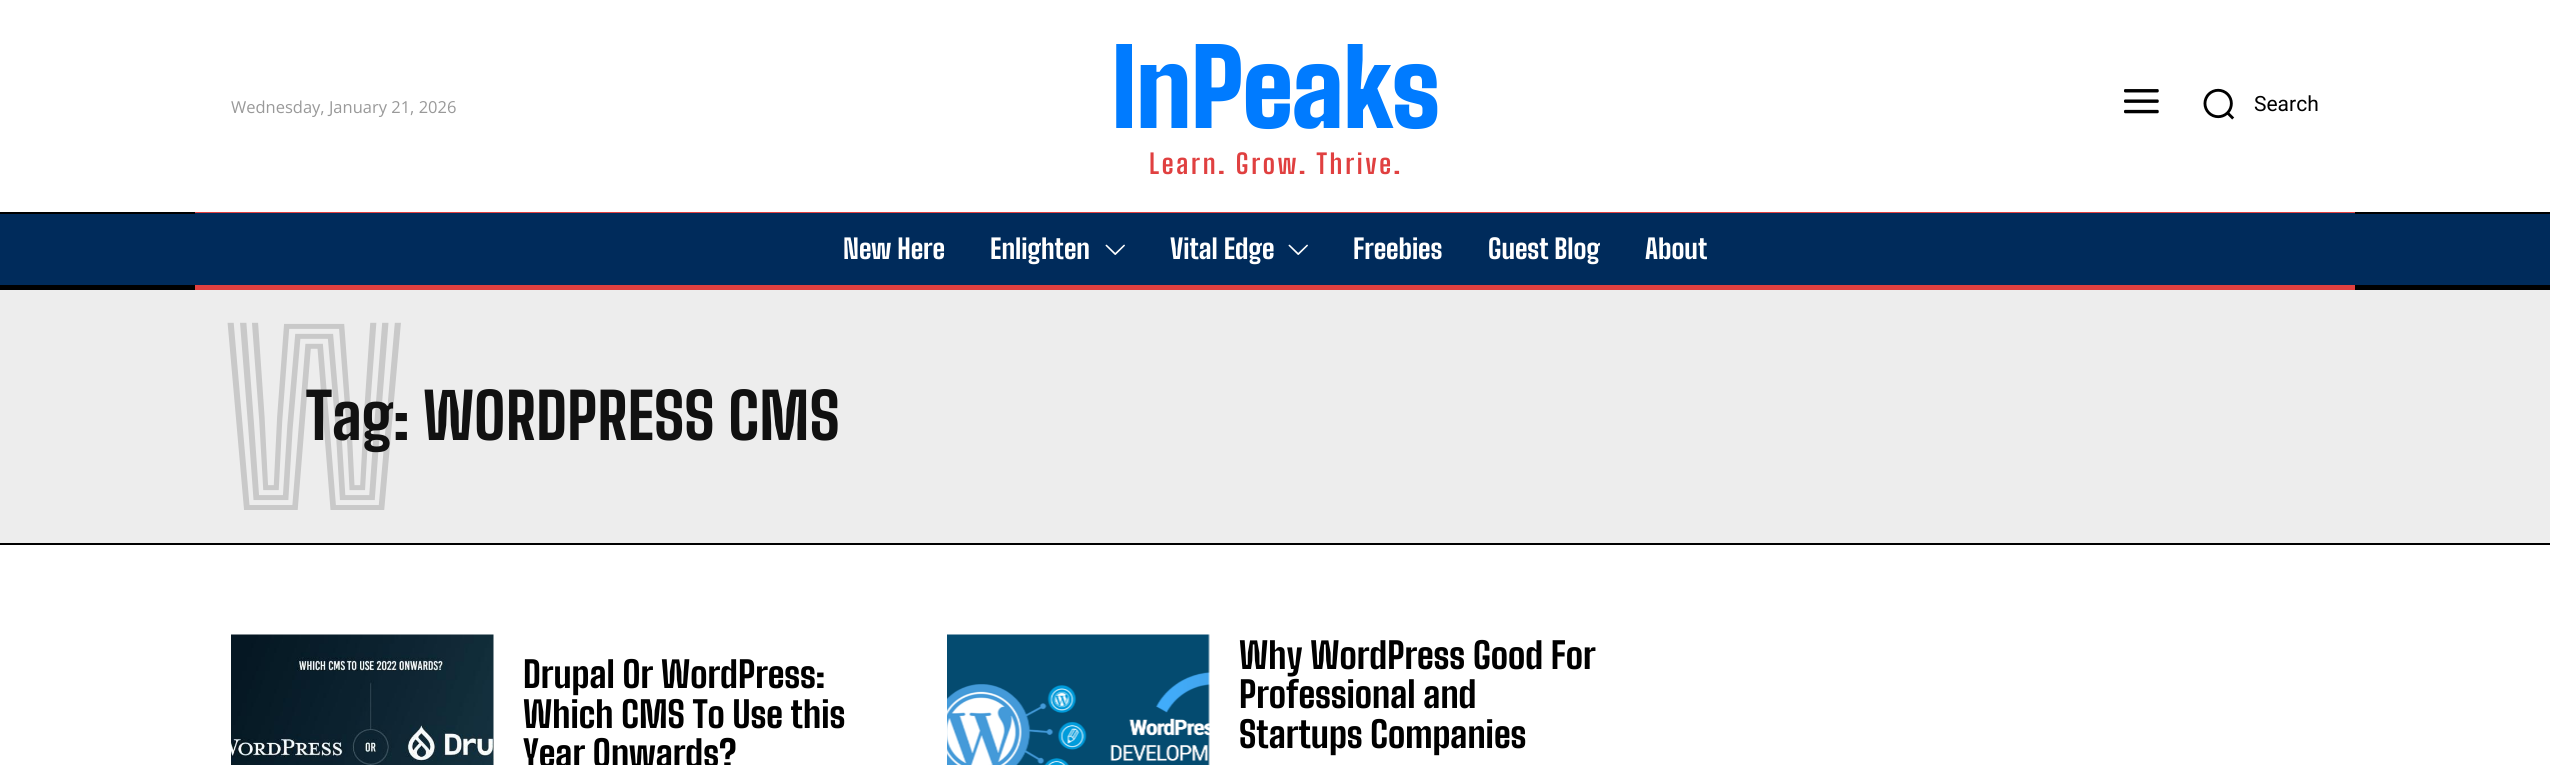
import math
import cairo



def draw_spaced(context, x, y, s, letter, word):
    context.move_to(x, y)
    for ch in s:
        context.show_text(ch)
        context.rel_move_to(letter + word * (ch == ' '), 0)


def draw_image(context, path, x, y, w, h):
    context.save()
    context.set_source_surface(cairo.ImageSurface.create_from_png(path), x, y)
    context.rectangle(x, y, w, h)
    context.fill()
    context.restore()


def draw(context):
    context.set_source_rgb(1, 1, 1)
    context.paint()
    draw_image(context, "images/1.png", 2124, 89, 35, 25)
    draw_image(context, "images/2.png", 2203, 88, 32, 32)
    context.set_source_rgb(0, 43 / 255, 91 / 255)
    context.rectangle(0, 214, 2550, 71)
    context.fill()
    context.set_source_rgb(0, 0, 0)
    context.rectangle(0, 212, 2550, 2)
    context.fill()
    context.rectangle(0, 285, 2550, 5)
    context.fill()
    context.set_source_rgb(224 / 255, 64 / 255, 64 / 255)
    context.rectangle(195, 212, 2160, 1)
    context.fill()
    context.rectangle(195, 285, 2160, 5)
    context.fill()
    context.set_source_rgb(0, 43 / 255, 91 / 255)
    context.rectangle(195, 213, 2160, 1)
    context.fill()
    draw_image(context, "images/3.png", 1105, 244, 20, 11)
    draw_image(context, "images/3.png", 1288, 244, 20, 11)
    context.set_source_rgb(237 / 255, 237 / 255, 237 / 255)
    context.rectangle(0, 290, 2550, 253)
    context.fill()
    context.set_source_rgb(0, 0, 0)
    context.rectangle(0, 543, 2550, 2)
    context.fill()
    draw_image(context, "images/4.png", 231, 634, 263, 131)
    draw_image(context, "images/5.png", 947, 634, 263, 131)
    context.select_font_face("Open Sans")
    context.set_font_size(16.5)
    context.set_source_rgb(153 / 255, 153 / 255, 153 / 255)
    context.move_to(231, 113)
    context.show_text("Wednesday, January 21, 2026")
    context.select_font_face("Big Shoulders Text Black")
    context.set_font_size(105)
    context.set_source_rgb(0, 123 / 255, 1)
    draw_spaced(context, 1111, 128, "InPeaks", -1.5, 0)
    context.select_font_face("Big Shoulders Text", cairo.FontSlant.NORMAL, cairo.FontWeight.BOLD)
    context.set_font_size(27)
    context.set_source_rgb(224 / 255, 64 / 255, 64 / 255)
    draw_spaced(context, 1149, 174, "Learn. Grow. Thrive.", 2.75, 0)
    context.select_font_face("Roboto")
    context.set_font_size(21)
    context.set_source_rgb(0, 0, 0)
    context.move_to(2254, 111)
    context.show_text("Search")
    context.select_font_face("Big Shoulders Text ExtraBold")
    context.set_font_size(27)
    context.set_source_rgb(1, 1, 1)
    context.move_to(843, 259)
    context.show_text("New Here")
    context.move_to(990, 259)
    context.show_text("Enlighten")
    context.move_to(1170, 259)
    context.show_text("Vital Edge")
    context.move_to(1353, 259)
    context.show_text("Freebies")
    context.move_to(1488, 259)
    context.show_text("Guest Blog")
    context.move_to(1645, 259)
    context.show_text("About")
    context.select_font_face("Big Shoulders Inline Text ExtraBold")
    context.set_font_size(234)
    context.set_source_rgb(201 / 255, 201 / 255, 201 / 255)
    context.move_to(222, 510)
    context.show_text("W")
    context.select_font_face("Big Shoulders Text ExtraBold")
    context.set_font_size(63)
    context.set_source_rgb(17 / 255, 17 / 255, 17 / 255)
    context.move_to(306, 440)
    context.show_text("Tag: WORDPRESS CMS")
    context.set_font_size(36)
    context.set_source_rgb(0, 0, 0)
    context.move_to(523, 688)
    context.show_text("Drupal Or WordPress:")
    context.move_to(523, 728)
    context.show_text("Which CMS To Use this")
    context.move_to(523, 767)
    context.show_text("Year Onwards?")
    context.move_to(1239, 669)
    context.show_text("Why WordPress Good For")
    context.move_to(1239, 708)
    context.show_text("Professional and")
    context.move_to(1239, 748)
    context.show_text("Startups Companies")


surface = cairo.ImageSurface(cairo.Format.RGB24, 2550, 765)
context = cairo.Context(surface)
options = cairo.FontOptions()
options.set_hint_metrics(cairo.HintMetrics.OFF)
options.set_hint_style(cairo.HintStyle.NONE)
context.set_font_options(options)
context.set_miter_limit(4)
draw(context)
surface.write_to_png("out.png")
